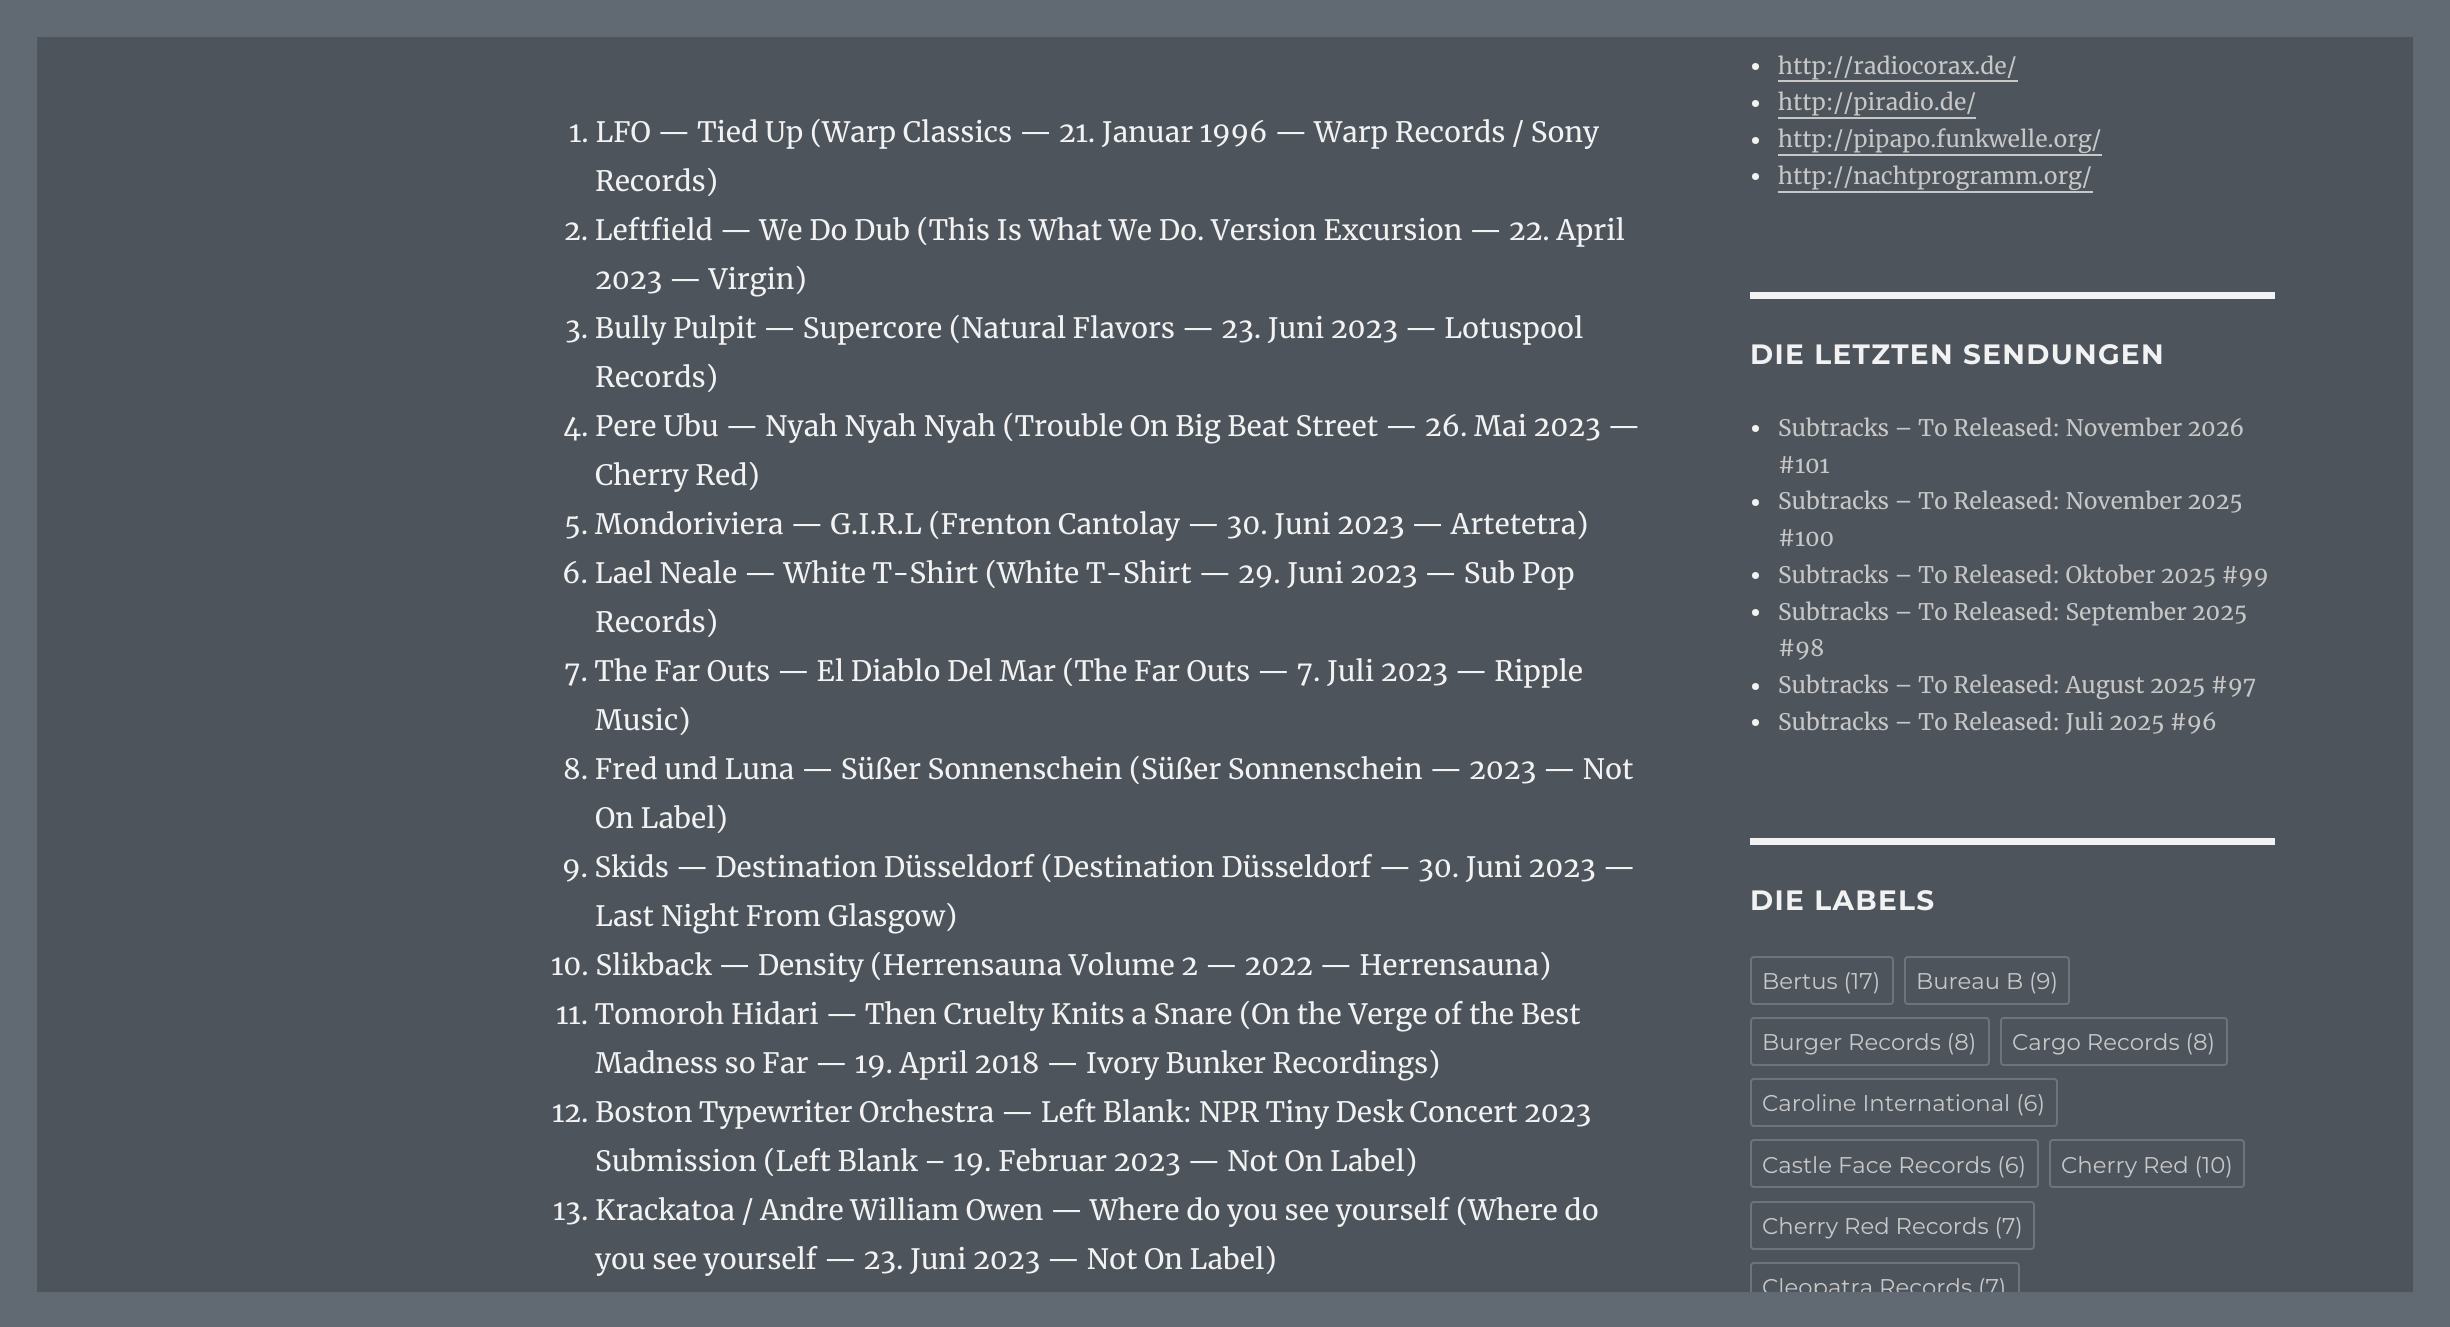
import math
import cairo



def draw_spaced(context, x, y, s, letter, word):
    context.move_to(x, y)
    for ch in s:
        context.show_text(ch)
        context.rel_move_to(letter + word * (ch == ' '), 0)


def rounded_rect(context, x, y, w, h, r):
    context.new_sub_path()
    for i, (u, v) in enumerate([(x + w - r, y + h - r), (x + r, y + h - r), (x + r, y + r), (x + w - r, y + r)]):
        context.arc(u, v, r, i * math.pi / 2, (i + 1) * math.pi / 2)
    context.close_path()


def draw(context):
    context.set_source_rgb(97 / 255, 106 / 255, 115 / 255)
    context.paint()
    context.set_source_rgb(77 / 255, 84 / 255, 92 / 255)
    context.rectangle(37, 37, 2376, 1255)
    context.fill()
    context.set_source_rgb(242 / 255, 242 / 255, 242 / 255)
    context.arc(1755.5, 66.5, 3.5, 0, 2 * math.pi)
    context.fill()
    context.set_source_rgb(199 / 255, 199 / 255, 199 / 255)
    context.new_path()
    context.move_to(1778, 80)
    context.line_to(1778, 82)
    context.line_to(2018, 82)
    context.line_to(2018, 53)
    context.line_to(2018, 80)
    context.close_path()
    context.fill()
    context.set_source_rgb(242 / 255, 242 / 255, 242 / 255)
    context.arc(1755.5, 103.5, 3.5, 0, 2 * math.pi)
    context.fill()
    context.set_source_rgb(199 / 255, 199 / 255, 199 / 255)
    context.new_path()
    context.move_to(1778, 117)
    context.line_to(1778, 119)
    context.line_to(1976, 119)
    context.line_to(1976, 89)
    context.line_to(1976, 117)
    context.close_path()
    context.fill()
    context.set_source_rgb(242 / 255, 242 / 255, 242 / 255)
    context.arc(1755.5, 140.5, 3.5, 0, 2 * math.pi)
    context.fill()
    context.set_source_rgb(199 / 255, 199 / 255, 199 / 255)
    context.new_path()
    context.move_to(1778, 154)
    context.line_to(1778, 156)
    context.line_to(2102, 156)
    context.line_to(2102, 126)
    context.line_to(2102, 154)
    context.close_path()
    context.fill()
    context.set_source_rgb(242 / 255, 242 / 255, 242 / 255)
    context.arc(1755.5, 176.5, 3.5, 0, 2 * math.pi)
    context.fill()
    context.set_source_rgb(199 / 255, 199 / 255, 199 / 255)
    context.rectangle(1778, 191, 315, 2)
    context.fill()
    context.set_source_rgb(242 / 255, 242 / 255, 242 / 255)
    context.rectangle(1750, 292, 525, 7)
    context.fill()
    context.arc(1755.5, 428.5, 3.5, 0, 2 * math.pi)
    context.fill()
    context.arc(1755.5, 502.5, 3.5, 0, 2 * math.pi)
    context.fill()
    context.arc(1755.5, 575.5, 3.5, 0, 2 * math.pi)
    context.fill()
    context.arc(1755.5, 612.5, 3.5, 0, 2 * math.pi)
    context.fill()
    context.arc(1755.5, 686.5, 3.5, 0, 2 * math.pi)
    context.fill()
    context.arc(1755.5, 722.5, 3.5, 0, 2 * math.pi)
    context.fill()
    context.rectangle(1750, 838, 525, 7)
    context.fill()
    rounded_rect(context, 1751, 957, 142, 47, 3)
    context.set_source_rgb(110 / 255, 116 / 255, 122 / 255)
    context.stroke()
    rounded_rect(context, 1905, 957, 164, 47, 3)
    context.stroke()
    rounded_rect(context, 1751, 1018, 238, 47, 3)
    context.stroke()
    rounded_rect(context, 2001, 1018, 226, 47, 3)
    context.stroke()
    rounded_rect(context, 1751, 1079, 306, 47, 3)
    context.stroke()
    rounded_rect(context, 1751, 1140, 287, 47, 3)
    context.stroke()
    rounded_rect(context, 2050, 1140, 194, 47, 3)
    context.stroke()
    rounded_rect(context, 1751, 1202, 283, 47, 3)
    context.stroke()
    rounded_rect(context, 1751, 1263, 268, 47, 3)
    context.stroke()
    context.select_font_face("Merriweather")
    context.set_font_size(28)
    context.set_source_rgb(242 / 255, 242 / 255, 242 / 255)
    context.move_to(569, 142)
    context.show_text("1. LFO — Tied Up (Warp Classics — 21. Januar 1996 — Warp Records / Sony")
    context.move_to(595, 191)
    context.show_text("Records)")
    context.move_to(564, 240)
    context.show_text("2. Leftfield — We Do Dub (This Is What We Do. Version Excursion — 22. April")
    context.move_to(595, 289)
    context.show_text("2023 — Virgin)")
    context.move_to(565, 338)
    context.show_text("3. Bully Pulpit — Supercore (Natural Flavors — 23. Juni 2023 — Lotuspool")
    context.move_to(595, 387)
    context.show_text("Records)")
    context.move_to(563, 436)
    context.show_text("4. Pere Ubu — Nyah Nyah Nyah (Trouble On Big Beat Street — 26. Mai 2023 —")
    context.move_to(595, 485)
    context.show_text("Cherry Red)")
    context.move_to(564, 534)
    context.show_text("5. Mondoriviera — G.I.R.L (Frenton Cantolay — 30. Juni 2023 — Artetetra)")
    context.move_to(562, 583)
    context.show_text("6. Lael Neale — White T-Shirt (White T-Shirt — 29. Juni 2023 — Sub Pop")
    context.move_to(595, 632)
    context.show_text("Records)")
    context.move_to(564, 681)
    context.show_text("7. The Far Outs — El Diablo Del Mar (The Far Outs — 7. Juli 2023 — Ripple")
    context.move_to(595, 730)
    context.show_text("Music)")
    context.move_to(563, 779)
    context.show_text("8. Fred und Luna — Süßer Sonnenschein (Süßer Sonnenschein — 2023 — Not")
    context.move_to(595, 828)
    context.show_text("On Label)")
    context.move_to(562, 877)
    context.show_text("9. Skids — Destination Düsseldorf (Destination Düsseldorf — 30. Juni 2023 —")
    context.move_to(595, 926)
    context.show_text("Last Night From Glasgow)")
    context.move_to(551, 975)
    context.show_text("10. Slikback — Density (Herrensauna Volume 2 — 2022 — Herrensauna)")
    context.move_to(556, 1024)
    context.show_text("11. Tomoroh Hidari — Then Cruelty Knits a Snare (On the Verge of the Best")
    context.move_to(595, 1073)
    context.show_text("Madness so Far — 19. April 2018 — Ivory Bunker Recordings)")
    context.move_to(552, 1122)
    context.show_text("12. Boston Typewriter Orchestra — Left Blank: NPR Tiny Desk Concert 2023")
    context.move_to(595, 1171)
    context.show_text("Submission (Left Blank – 19. Februar 2023 — Not On Label)")
    context.move_to(553, 1220)
    context.show_text("13. Krackatoa / Andre William Owen — Where do you see yourself (Where do")
    context.move_to(595, 1269)
    context.show_text("you see yourself — 23. Juni 2023 — Not On Label)")
    context.set_font_size(22.75)
    context.set_source_rgb(199 / 255, 199 / 255, 199 / 255)
    context.move_to(1778, 74)
    context.show_text("http://radiocorax.de/")
    context.move_to(1778, 110)
    context.show_text("http://piradio.de/")
    context.move_to(1778, 147)
    context.show_text("http://pipapo.funkwelle.org/")
    context.move_to(1778, 184)
    context.show_text("http://nachtprogramm.org/")
    context.select_font_face("Montserrat Thin")
    context.set_font_size(28)
    context.set_source_rgb(242 / 255, 242 / 255, 242 / 255)
    draw_spaced(context, 1750, 364, "DIE LETZTEN SENDUNGEN", 1.3, 0)
    context.select_font_face("Merriweather")
    context.set_font_size(22.75)
    context.set_source_rgb(199 / 255, 199 / 255, 199 / 255)
    context.move_to(1778, 436)
    context.show_text("Subtracks – To Released: November 2026")
    context.move_to(1778, 473)
    context.show_text("#101")
    context.move_to(1778, 509)
    context.show_text("Subtracks – To Released: November 2025")
    context.move_to(1778, 546)
    context.show_text("#100")
    context.move_to(1778, 583)
    context.show_text("Subtracks – To Released: Oktober 2025 #99")
    context.move_to(1778, 620)
    context.show_text("Subtracks – To Released: September 2025")
    context.move_to(1778, 656)
    context.show_text("#98")
    context.move_to(1778, 693)
    context.show_text("Subtracks – To Released: August 2025 #97")
    context.move_to(1778, 730)
    context.show_text("Subtracks – To Released: Juli 2025 #96")
    context.select_font_face("Montserrat Thin")
    context.set_font_size(28)
    context.set_source_rgb(242 / 255, 242 / 255, 242 / 255)
    draw_spaced(context, 1750, 910, "DIE LABELS", 1.3, 0)
    context.select_font_face("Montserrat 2 Thin")
    context.set_font_size(22.75)
    context.set_source_rgb(199 / 255, 199 / 255, 199 / 255)
    context.move_to(1762, 989)
    context.show_text("Bertus (17)")
    context.move_to(1916, 989)
    context.show_text("Bureau B (9)")
    context.move_to(1762, 1050)
    context.show_text("Burger Records (8)")
    context.move_to(2012, 1050)
    context.show_text("Cargo Records (8)")
    context.move_to(1762, 1111)
    context.show_text("Caroline International (6)")
    context.move_to(1762, 1173)
    context.show_text("Castle Face Records (6)")
    context.move_to(2061, 1173)
    context.show_text("Cherry Red (10)")
    context.move_to(1762, 1234)
    context.show_text("Cherry Red Records (7)")
    context.move_to(1762, 1295)
    context.show_text("Cleopatra Records (7)")
    context.set_source_rgb(97 / 255, 106 / 255, 115 / 255)
    context.rectangle(1750, 1292, 270, 19)
    context.fill()


surface = cairo.ImageSurface(cairo.Format.RGB24, 2450, 1327)
context = cairo.Context(surface)
options = cairo.FontOptions()
options.set_hint_metrics(cairo.HintMetrics.OFF)
options.set_hint_style(cairo.HintStyle.NONE)
context.set_font_options(options)
context.set_miter_limit(4)
draw(context)
surface.write_to_png("out.png")
